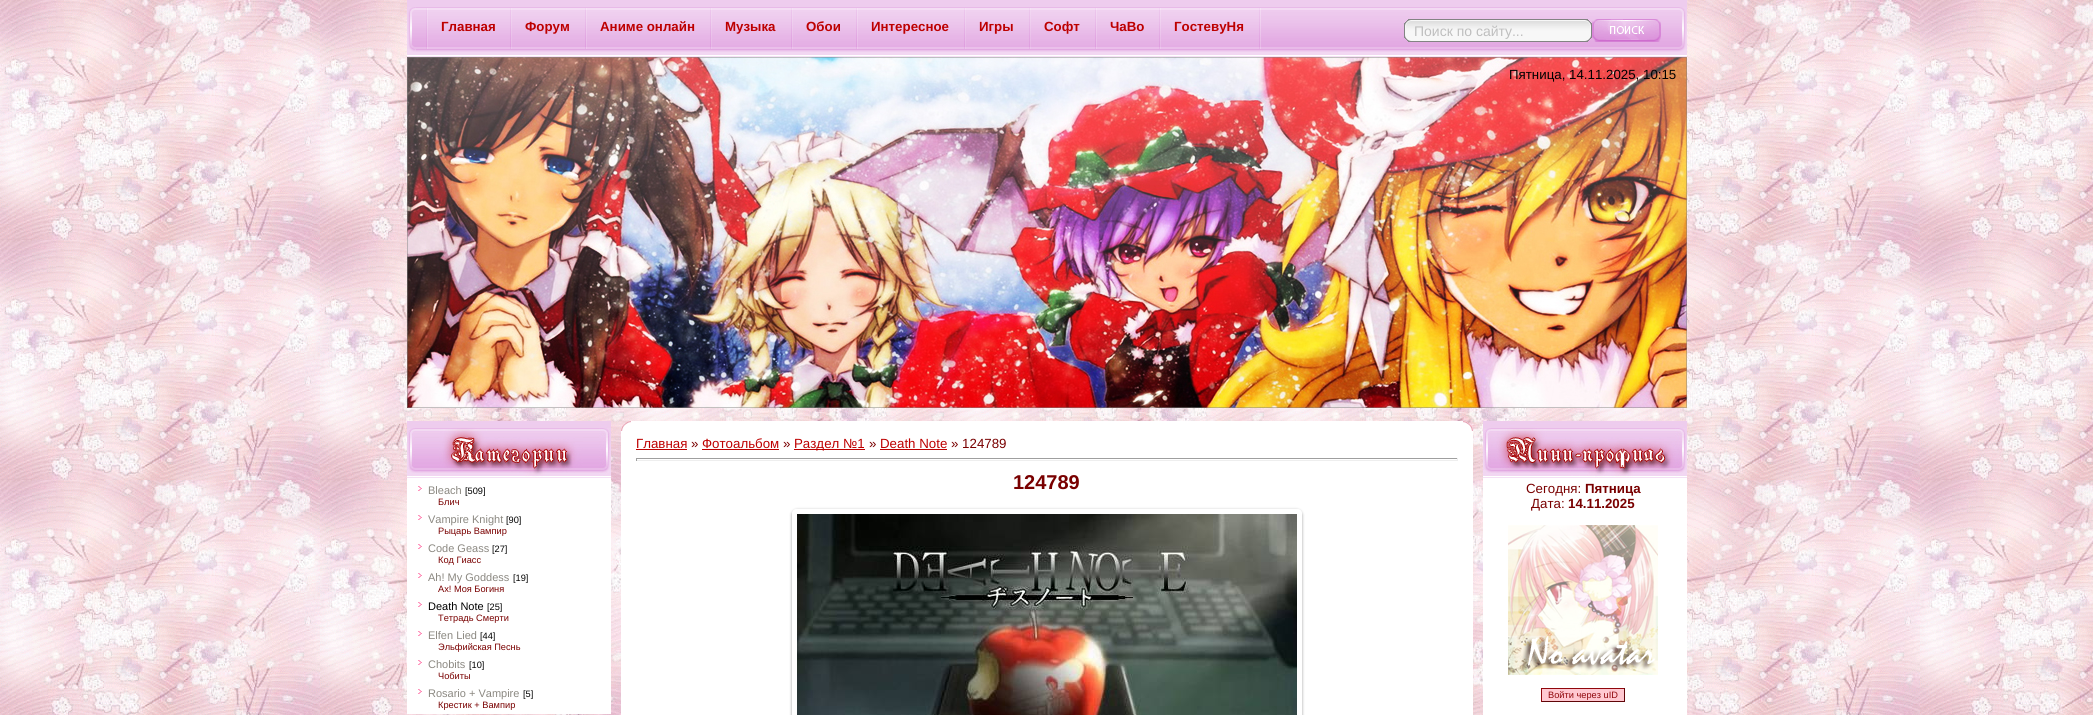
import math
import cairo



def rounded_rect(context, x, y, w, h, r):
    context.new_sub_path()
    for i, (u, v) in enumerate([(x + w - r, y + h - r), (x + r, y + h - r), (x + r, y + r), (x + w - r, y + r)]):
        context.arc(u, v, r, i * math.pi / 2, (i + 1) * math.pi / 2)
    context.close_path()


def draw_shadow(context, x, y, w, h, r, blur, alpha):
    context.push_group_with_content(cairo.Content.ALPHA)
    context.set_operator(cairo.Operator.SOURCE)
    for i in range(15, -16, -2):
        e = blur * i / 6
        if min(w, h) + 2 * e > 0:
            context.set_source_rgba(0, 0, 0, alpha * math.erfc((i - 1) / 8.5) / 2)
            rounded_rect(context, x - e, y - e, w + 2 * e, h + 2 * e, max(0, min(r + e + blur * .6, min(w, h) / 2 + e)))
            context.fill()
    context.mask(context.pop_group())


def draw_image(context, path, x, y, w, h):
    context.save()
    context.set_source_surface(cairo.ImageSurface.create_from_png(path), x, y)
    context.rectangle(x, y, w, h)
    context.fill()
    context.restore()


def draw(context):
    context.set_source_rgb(1, 1, 1)
    context.paint()
    draw_image(context, "images/1.png", 0, 0, 2093, 715)
    draw_image(context, "images/2.png", 407, 0, 9, 57)
    draw_image(context, "images/3.png", 416, 0, 988, 57)
    draw_image(context, "images/4.png", 426, 8, 84, 41)
    draw_image(context, "images/5.png", 510, 8, 75, 41)
    draw_image(context, "images/6.png", 585, 8, 125, 41)
    draw_image(context, "images/7.png", 710, 8, 81, 41)
    draw_image(context, "images/8.png", 791, 8, 65, 41)
    draw_image(context, "images/9.png", 856, 8, 108, 41)
    draw_image(context, "images/8.png", 964, 8, 65, 41)
    draw_image(context, "images/10.png", 1029, 8, 66, 41)
    draw_image(context, "images/11.png", 1095, 8, 64, 41)
    draw_image(context, "images/12.png", 1159, 8, 100, 41)
    draw_image(context, "images/13.png", 1259, 8, 2, 41)
    draw_image(context, "images/14.png", 1404, 0, 283, 57)
    draw_image(context, "images/15.png", 1404, 19, 188, 23)
    draw_image(context, "images/16.png", 1592, 19, 69, 23)
    draw_image(context, "images/17.png", 407, 57, 1280, 351)
    draw_image(context, "images/18.png", 621, 421, 10, 10)
    context.set_source_rgb(1, 1, 1)
    context.rectangle(631, 421, 832, 10)
    context.fill()
    draw_image(context, "images/19.png", 1463, 421, 10, 10)
    context.rectangle(621, 431, 852, 284)
    context.fill()
    context.set_source_rgb(189 / 255, 0, 0)
    context.rectangle(636, 449, 51, 1)
    context.fill()
    context.rectangle(702, 449, 77, 1)
    context.fill()
    context.rectangle(794, 449, 71, 1)
    context.fill()
    context.rectangle(880, 449, 67, 1)
    context.fill()
    context.set_source_rgb(159 / 255, 159 / 255, 159 / 255)
    context.rectangle(636, 458, 822, 1)
    context.fill()
    context.set_source_rgb(238 / 255, 238 / 255, 238 / 255)
    context.rectangle(1457, 458, 1, 3)
    context.fill()
    context.rectangle(636, 460, 822, 1)
    context.fill()
    context.set_source_rgb(159 / 255, 159 / 255, 159 / 255)
    context.rectangle(636, 458, 1, 3)
    context.fill()
    context.save()
    context.set_fill_rule(cairo.FillRule.EVEN_ODD)
    context.new_path()
    context.move_to(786, 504)
    context.line_to(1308, 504)
    context.line_to(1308, 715)
    context.line_to(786, 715)
    context.close_path()
    context.move_to(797, 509)
    context.line_to(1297, 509)
    context.curve_to(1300, 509, 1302, 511, 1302, 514)
    context.line_to(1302, 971)
    context.curve_to(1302, 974, 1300, 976, 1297, 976)
    context.line_to(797, 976)
    context.curve_to(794, 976, 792, 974, 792, 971)
    context.line_to(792, 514)
    context.curve_to(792, 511, 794, 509, 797, 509)
    context.close_path()
    context.clip()
    context.set_source_rgb(0, 0, 0)
    draw_shadow(context, 792, 510, 510, 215, 5, 1.5, 0.37)
    context.restore()
    draw_image(context, "images/20.png", 797, 514, 500, 201)
    draw_image(context, "images/21.png", 407, 421, 204, 57)
    context.set_source_rgb(1, 1, 1)
    context.rectangle(407, 478, 204, 236)
    context.fill()
    draw_image(context, "images/22.png", 418, 486, 4, 5)
    draw_image(context, "images/22.png", 418, 515, 4, 5)
    draw_image(context, "images/22.png", 418, 544, 4, 5)
    draw_image(context, "images/22.png", 418, 573, 4, 5)
    draw_image(context, "images/22.png", 418, 602, 4, 5)
    draw_image(context, "images/22.png", 418, 631, 4, 5)
    draw_image(context, "images/22.png", 418, 660, 4, 5)
    draw_image(context, "images/22.png", 418, 689, 4, 5)
    draw_image(context, "images/23.png", 1483, 421, 204, 57)
    context.rectangle(1483, 478, 204, 237)
    context.fill()
    draw_image(context, "images/24.png", 1508, 525, 150, 150)
    context.set_source_rgb(1, 200 / 255, 209 / 255)
    context.rectangle(1542, 689, 82, 12)
    context.fill()
    context.set_source_rgb(144 / 255, 7 / 255, 12 / 255)
    context.rectangle(1541, 688, 84, 1)
    context.fill()
    context.set_source_rgb(96 / 255, 5 / 255, 8 / 255)
    context.rectangle(1624, 688, 1, 14)
    context.fill()
    context.rectangle(1541, 701, 84, 1)
    context.fill()
    context.set_source_rgb(144 / 255, 7 / 255, 12 / 255)
    context.rectangle(1541, 688, 1, 14)
    context.fill()
    context.select_font_face("Liberation Sans", cairo.FontSlant.NORMAL, cairo.FontWeight.BOLD)
    context.set_font_size(13.3)
    context.set_source_rgb(189 / 255, 0, 0)
    context.move_to(441, 31)
    context.show_text("Главная")
    context.move_to(525, 31)
    context.show_text("Форум")
    context.move_to(600, 31)
    context.show_text("Аниме онлайн")
    context.move_to(725, 31)
    context.show_text("Музыка")
    context.move_to(806, 31)
    context.show_text("Обои")
    context.move_to(871, 31)
    context.show_text("Интересное")
    context.move_to(979, 31)
    context.show_text("Игры")
    context.move_to(1044, 31)
    context.show_text("Софт")
    context.move_to(1110, 31)
    context.show_text("ЧаВо")
    context.move_to(1174, 31)
    context.show_text("ГостевуНя")
    context.select_font_face("Liberation Sans")
    context.set_font_size(14)
    context.set_source_rgb(190 / 255, 190 / 255, 190 / 255)
    context.move_to(1414, 36)
    context.show_text("Поиск по сайту...")
    context.set_font_size(13.3)
    context.set_source_rgb(0, 0, 0)
    context.move_to(1509, 79)
    context.show_text("Пятница, 14.11.2025, 10:15")
    context.set_source_rgb(189 / 255, 0, 0)
    context.move_to(636, 448)
    context.show_text("Главная")
    context.set_source_rgb(121 / 255, 0, 0)
    context.move_to(691, 448)
    context.show_text("»")
    context.set_source_rgb(189 / 255, 0, 0)
    context.move_to(702, 448)
    context.show_text("Фотоальбом")
    context.set_source_rgb(121 / 255, 0, 0)
    context.move_to(783, 448)
    context.show_text("»")
    context.set_source_rgb(189 / 255, 0, 0)
    context.move_to(794, 448)
    context.show_text("Раздел №1")
    context.set_source_rgb(121 / 255, 0, 0)
    context.move_to(869, 448)
    context.show_text("»")
    context.set_source_rgb(189 / 255, 0, 0)
    context.move_to(880, 448)
    context.show_text("Death Note")
    context.set_source_rgb(121 / 255, 0, 0)
    context.move_to(951, 448)
    context.show_text("» 124789")
    context.select_font_face("Liberation Sans", cairo.FontSlant.NORMAL, cairo.FontWeight.BOLD)
    context.set_font_size(20)
    context.move_to(1013, 489)
    context.show_text("124789")
    context.select_font_face("Liberation Sans")
    context.set_font_size(11)
    context.set_source_rgb(139 / 255, 136 / 255, 129 / 255)
    context.move_to(428, 494)
    context.show_text("Bleach")
    context.set_font_size(9.25)
    context.set_source_rgb(0, 0, 0)
    context.move_to(465, 494)
    context.show_text("[509]")
    context.set_source_rgb(121 / 255, 0, 0)
    context.move_to(438, 505)
    context.show_text("Блич")
    context.set_font_size(11)
    context.set_source_rgb(139 / 255, 136 / 255, 129 / 255)
    context.move_to(428, 523)
    context.show_text("Vampire Knight")
    context.set_font_size(9.25)
    context.set_source_rgb(0, 0, 0)
    context.move_to(506, 523)
    context.show_text("[90]")
    context.set_source_rgb(121 / 255, 0, 0)
    context.move_to(438, 534)
    context.show_text("Рыцарь Вампир")
    context.set_font_size(11)
    context.set_source_rgb(139 / 255, 136 / 255, 129 / 255)
    context.move_to(428, 552)
    context.show_text("Code Geass")
    context.set_font_size(9.25)
    context.set_source_rgb(0, 0, 0)
    context.move_to(492, 552)
    context.show_text("[27]")
    context.set_source_rgb(121 / 255, 0, 0)
    context.move_to(438, 563)
    context.show_text("Код Гиасс")
    context.set_font_size(11)
    context.set_source_rgb(139 / 255, 136 / 255, 129 / 255)
    context.move_to(428, 581)
    context.show_text("Ah! My Goddess")
    context.set_font_size(9.25)
    context.set_source_rgb(0, 0, 0)
    context.move_to(513, 581)
    context.show_text("[19]")
    context.set_source_rgb(121 / 255, 0, 0)
    context.move_to(438, 592)
    context.show_text("Ах! Моя Богиня")
    context.set_font_size(11)
    context.set_source_rgb(0, 0, 0)
    context.move_to(428, 610)
    context.show_text("Death Note")
    context.set_font_size(9.25)
    context.move_to(487, 610)
    context.show_text("[25]")
    context.set_source_rgb(121 / 255, 0, 0)
    context.move_to(438, 621)
    context.show_text("Тетрадь Смерти")
    context.set_font_size(11)
    context.set_source_rgb(139 / 255, 136 / 255, 129 / 255)
    context.move_to(428, 639)
    context.show_text("Elfen Lied")
    context.set_font_size(9.25)
    context.set_source_rgb(0, 0, 0)
    context.move_to(480, 639)
    context.show_text("[44]")
    context.set_source_rgb(121 / 255, 0, 0)
    context.move_to(438, 650)
    context.show_text("Эльфийская Песнь")
    context.set_font_size(11)
    context.set_source_rgb(139 / 255, 136 / 255, 129 / 255)
    context.move_to(428, 668)
    context.show_text("Chobits")
    context.set_font_size(9.25)
    context.set_source_rgb(0, 0, 0)
    context.move_to(469, 668)
    context.show_text("[10]")
    context.set_source_rgb(121 / 255, 0, 0)
    context.move_to(438, 679)
    context.show_text("Чобиты")
    context.set_font_size(11)
    context.set_source_rgb(139 / 255, 136 / 255, 129 / 255)
    context.move_to(428, 697)
    context.show_text("Rosario + Vampire")
    context.set_font_size(9.25)
    context.set_source_rgb(0, 0, 0)
    context.move_to(523, 697)
    context.show_text("[5]")
    context.set_source_rgb(121 / 255, 0, 0)
    context.move_to(438, 708)
    context.show_text("Крестик + Вампир")
    context.set_font_size(13.3)
    context.move_to(1526, 493)
    context.show_text("Сегодня:")
    context.select_font_face("Liberation Sans", cairo.FontSlant.NORMAL, cairo.FontWeight.BOLD)
    context.move_to(1585, 493)
    context.show_text("Пятница")
    context.select_font_face("Liberation Sans")
    context.move_to(1531, 508)
    context.show_text("Дата:")
    context.select_font_face("Liberation Sans", cairo.FontSlant.NORMAL, cairo.FontWeight.BOLD)
    context.move_to(1568, 508)
    context.show_text("14.11.2025")
    context.select_font_face("Liberation Sans")
    context.set_font_size(9.25)
    context.set_source_rgb(144 / 255, 7 / 255, 12 / 255)
    context.move_to(1548, 698)
    context.show_text("Войти через uID")


surface = cairo.ImageSurface(cairo.Format.RGB24, 2093, 715)
context = cairo.Context(surface)
options = cairo.FontOptions()
options.set_hint_metrics(cairo.HintMetrics.OFF)
options.set_hint_style(cairo.HintStyle.NONE)
context.set_font_options(options)
context.set_miter_limit(4)
draw(context)
surface.write_to_png("out.png")
